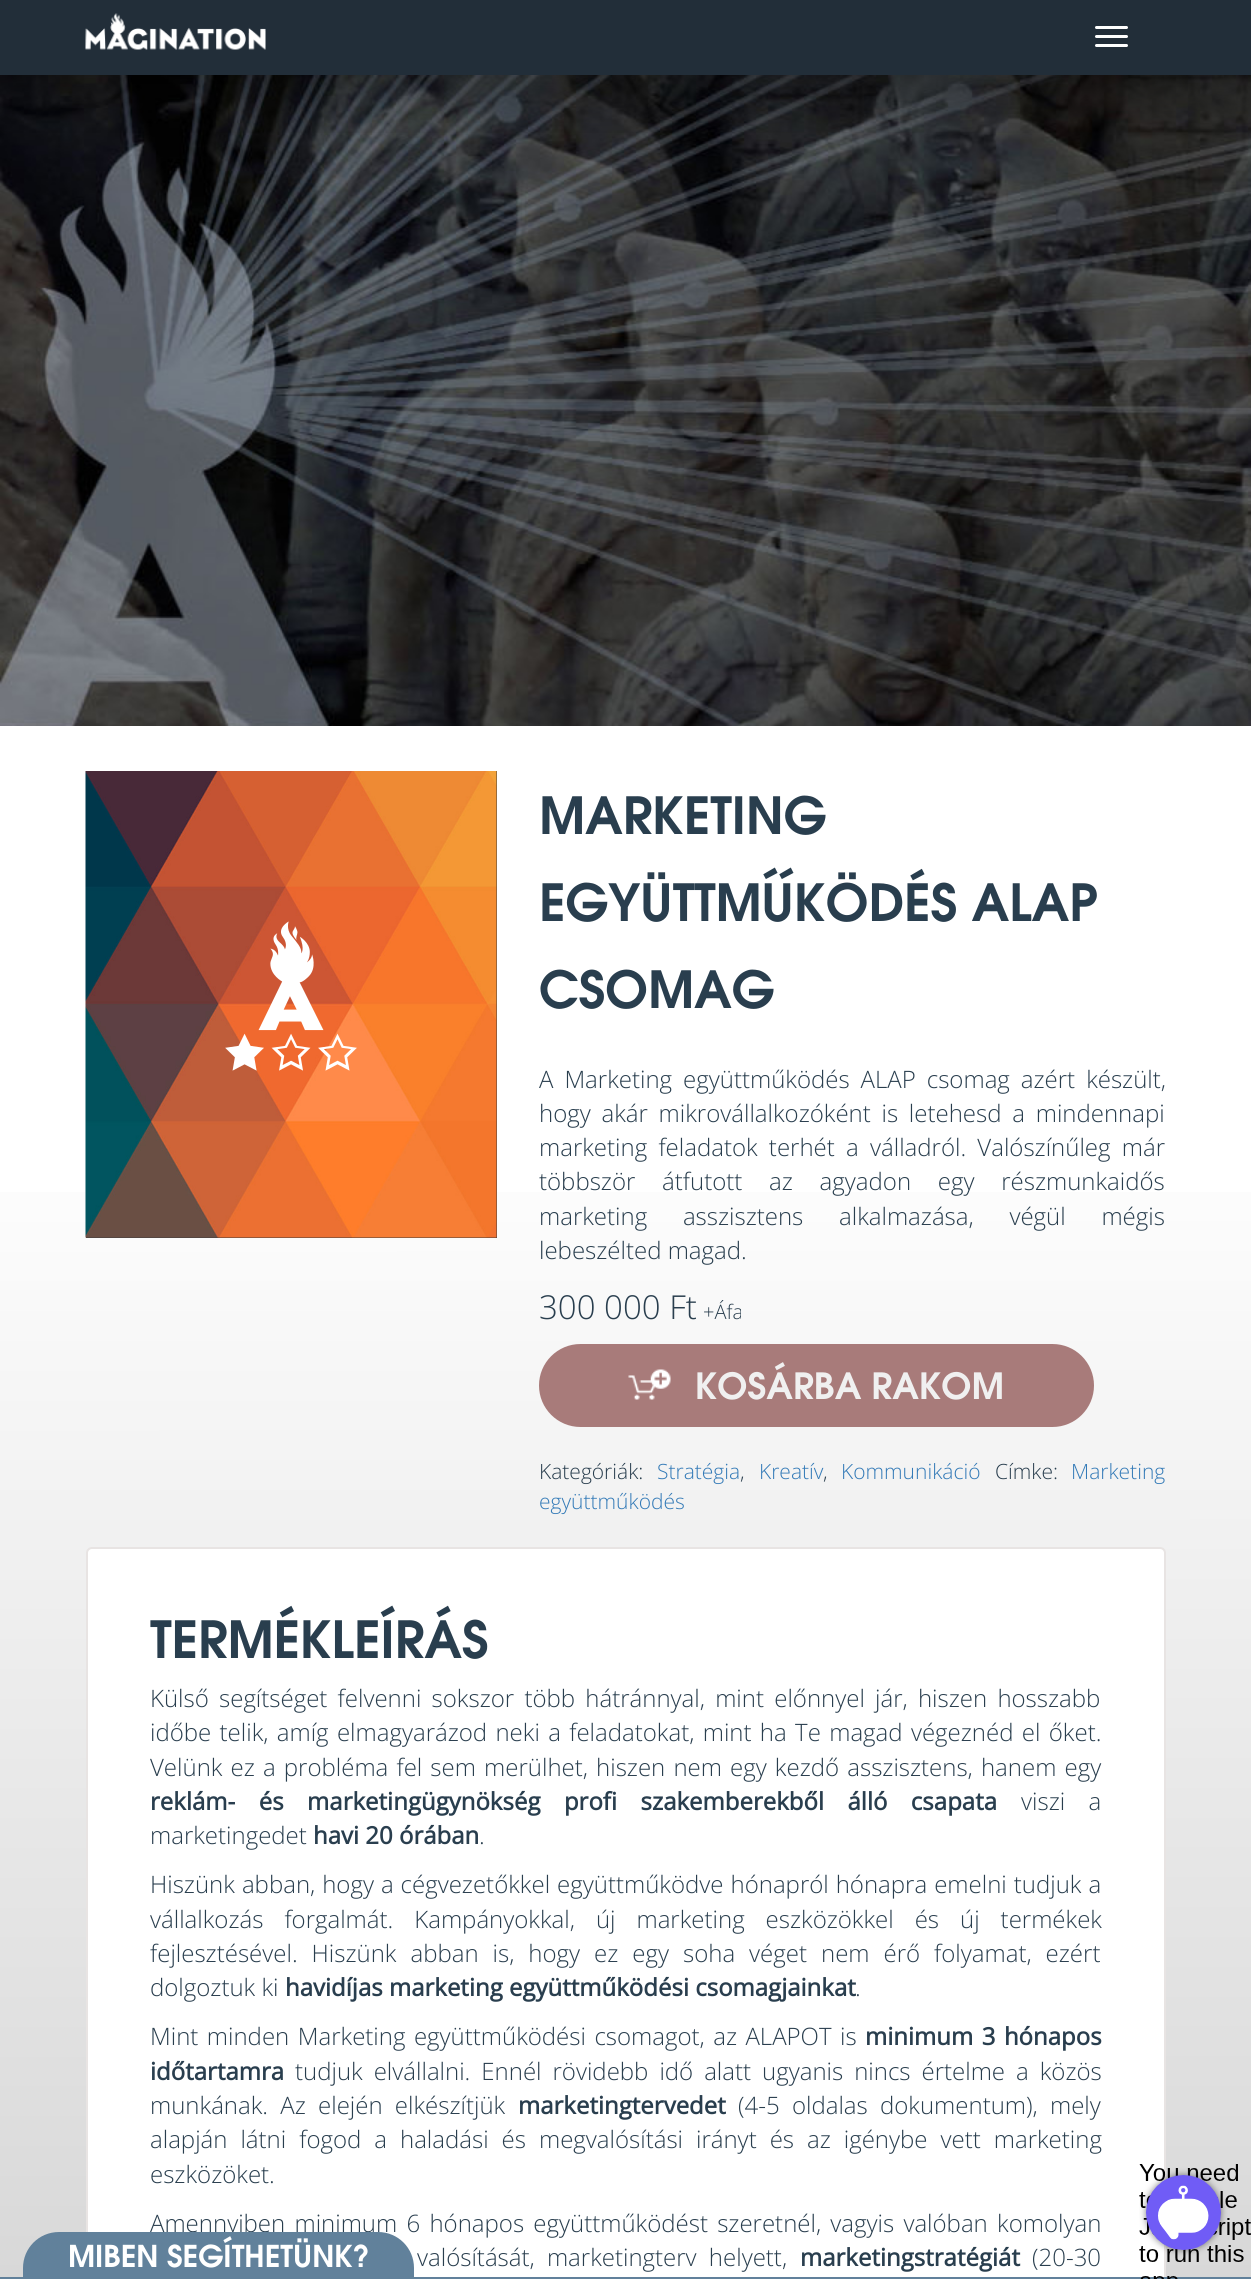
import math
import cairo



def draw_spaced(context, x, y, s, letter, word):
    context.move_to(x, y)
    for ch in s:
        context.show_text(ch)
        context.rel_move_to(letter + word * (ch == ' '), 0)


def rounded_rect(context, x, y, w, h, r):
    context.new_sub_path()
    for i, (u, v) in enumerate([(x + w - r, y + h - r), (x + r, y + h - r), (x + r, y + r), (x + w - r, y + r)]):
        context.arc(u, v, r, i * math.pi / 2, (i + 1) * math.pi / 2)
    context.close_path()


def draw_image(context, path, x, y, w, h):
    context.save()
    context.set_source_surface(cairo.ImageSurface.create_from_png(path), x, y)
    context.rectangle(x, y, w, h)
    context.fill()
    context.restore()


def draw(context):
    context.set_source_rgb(1, 1, 1)
    context.paint()
    context.set_source_rgb(34 / 255, 46 / 255, 57 / 255)
    context.rectangle(0, 0, 1251, 75)
    context.fill()
    draw_image(context, "images/1.png", 85, 13, 181, 37)
    context.set_source_rgb(1, 1, 1)
    rounded_rect(context, 1095, 26, 33, 3, 1.5)
    context.fill()
    rounded_rect(context, 1095, 35, 33, 3, 1.5)
    context.fill()
    rounded_rect(context, 1095, 44, 33, 3, 1.5)
    context.fill()
    draw_image(context, "images/2.png", 0, 75, 1251, 651)
    draw_image(context, "images/3.png", 0, 75, 1251, 58)
    gradient = cairo.LinearGradient(625, 0, 626, 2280)
    gradient.add_color_stop_rgba(0.49, 1, 1, 1, 1)
    gradient.add_color_stop_rgba(1, 216 / 255, 216 / 255, 216 / 255, 1)
    context.set_source(gradient)
    context.rectangle(0, 1192, 1251, 1085)
    context.fill()
    context.set_source_rgb(63 / 255, 63 / 255, 63 / 255)
    context.rectangle(86, 771, 411, 467)
    context.fill()
    draw_image(context, "images/4.png", 85, 771, 412, 467)
    draw_image(context, "images/5.png", 225, 921, 132, 150)
    context.set_source_rgb(168 / 255, 123 / 255, 122 / 255)
    rounded_rect(context, 539, 1344, 555, 83, 41.5)
    context.fill()
    draw_image(context, "images/6.png", 628, 1369, 43, 31)
    context.set_source_rgb(1, 1, 1)
    rounded_rect(context, 87, 1548, 1078, 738, 5)
    context.fill_preserve()
    context.set_source_rgb(232 / 255, 228 / 255, 227 / 255)
    context.stroke()
    context.set_source_rgb(97 / 255, 129 / 255, 155 / 255)
    context.rectangle(0, 2277, 1251, 2)
    context.fill()
    draw_image(context, "images/7.png", 1139, 2164, 112, 115)
    context.select_font_face("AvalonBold", cairo.FontSlant.NORMAL, cairo.FontWeight.BOLD)
    context.set_font_size(51)
    context.set_source_rgb(41 / 255, 62 / 255, 78 / 255)
    context.move_to(539, 834)
    context.show_text("MARKETING")
    context.move_to(539, 921)
    context.show_text("EGYÜTTMŰKÖDÉS ALAP")
    context.move_to(539, 1008)
    context.show_text("CSOMAG")
    context.select_font_face("Open Sans Light")
    context.set_font_size(24)
    draw_spaced(context, 539, 1088, "A Marketing együttműködés ALAP csomag azért készült,", 0, 4.75)
    draw_spaced(context, 539, 1122, "hogy akár mikrovállalkozóként is letehesd a mindennapi", 0, 4.5)
    draw_spaced(context, 539, 1156, "marketing feladatok terhét a válladról. Valószínűleg már", 0, 5)
    draw_spaced(context, 539, 1190, "többször átfutott az agyadon egy részmunkaidős", 0, 20.5)
    draw_spaced(context, 539, 1225, "marketing asszisztens alkalmazása, végül mégis", 0, 29.5)
    context.move_to(539, 1259)
    context.show_text("lebeszélted magad.")
    context.set_font_size(33)
    context.move_to(539, 1319)
    context.show_text("300 000 Ft")
    context.set_font_size(20)
    context.move_to(703, 1319)
    context.show_text("+Áfa")
    context.select_font_face("AvalonBold", cairo.FontSlant.NORMAL, cairo.FontWeight.BOLD)
    context.set_font_size(36)
    context.set_source_rgb(240 / 255, 240 / 255, 240 / 255)
    context.move_to(695, 1399)
    context.show_text("KOSÁRBA RAKOM")
    context.select_font_face("Open Sans Light")
    context.set_font_size(21)
    context.set_source_rgb(41 / 255, 62 / 255, 78 / 255)
    context.move_to(539, 1479)
    context.show_text("Kategóriák:")
    context.set_source_rgb(51 / 255, 122 / 255, 183 / 255)
    context.move_to(657, 1479)
    context.show_text("Stratégia")
    context.set_source_rgb(41 / 255, 62 / 255, 78 / 255)
    context.move_to(740, 1479)
    context.show_text(",")
    context.set_source_rgb(51 / 255, 122 / 255, 183 / 255)
    context.move_to(759, 1479)
    context.show_text("Kreatív")
    context.set_source_rgb(41 / 255, 62 / 255, 78 / 255)
    context.move_to(823, 1479)
    context.show_text(",")
    context.set_source_rgb(51 / 255, 122 / 255, 183 / 255)
    context.move_to(841, 1479)
    context.show_text("Kommunikáció")
    context.set_source_rgb(41 / 255, 62 / 255, 78 / 255)
    context.move_to(995, 1479)
    context.show_text("Címke:")
    context.set_source_rgb(51 / 255, 122 / 255, 183 / 255)
    context.move_to(1071, 1479)
    context.show_text("Marketing")
    context.move_to(539, 1509)
    context.show_text("együttműködés")
    context.select_font_face("AvalonBold", cairo.FontSlant.NORMAL, cairo.FontWeight.BOLD)
    context.set_font_size(51)
    context.set_source_rgb(41 / 255, 62 / 255, 78 / 255)
    context.move_to(150, 1658)
    context.show_text("TERMÉKLEÍRÁS")
    context.select_font_face("Open Sans Light")
    context.set_font_size(24)
    draw_spaced(context, 150, 1707, "Külső segítséget felvenni sokszor több hátránnyal, mint előnnyel jár, hiszen hosszabb", 0, 4)
    draw_spaced(context, 150, 1741, "időbe telik, amíg elmagyarázod neki a feladatokat, mint ha Te magad végeznéd el őket.", 0, 2.1)
    draw_spaced(context, 150, 1776, "Velünk ez a probléma fel sem merülhet, hiszen nem egy kezdő asszisztens, hanem egy", 0, 1.9)
    context.select_font_face("Open Sans", cairo.FontSlant.NORMAL, cairo.FontWeight.BOLD)
    draw_spaced(context, 150, 1810, "reklám- és marketingügynökség profi szakemberekből álló csapata", 0, 17.25)
    context.select_font_face("Open Sans Light")
    draw_spaced(context, 1021, 1810, "viszi a", 0, 17.25)
    context.move_to(150, 1844)
    context.show_text("marketingedet")
    context.select_font_face("Open Sans", cairo.FontSlant.NORMAL, cairo.FontWeight.BOLD)
    context.move_to(313, 1844)
    context.show_text("havi 20 órában")
    context.select_font_face("Open Sans Light")
    context.move_to(479, 1844)
    context.show_text(".")
    draw_spaced(context, 150, 1893, "Hiszünk abban, hogy a cégvezetőkkel együttműködve hónapról hónapra emelni tudjuk a", 0, 0.75)
    draw_spaced(context, 150, 1928, "vállalkozás forgalmát. Kampányokkal, új marketing eszközökkel és új termékek", 0, 14.75)
    draw_spaced(context, 150, 1962, "fejlesztésével. Hiszünk abban is, hogy ez egy soha véget nem érő folyamat, ezért", 0, 7.75)
    context.move_to(150, 1996)
    context.show_text("dolgoztuk ki")
    context.select_font_face("Open Sans", cairo.FontSlant.NORMAL, cairo.FontWeight.BOLD)
    context.move_to(285, 1996)
    context.show_text("havidíjas marketing együttműködési csomagjainkat")
    context.select_font_face("Open Sans Light")
    context.move_to(855, 1996)
    context.show_text(".")
    draw_spaced(context, 150, 2045, "Mint minden Marketing együttműködési csomagot, az ALAPOT is", 0, 2.25)
    context.select_font_face("Open Sans", cairo.FontSlant.NORMAL, cairo.FontWeight.BOLD)
    draw_spaced(context, 865, 2045, "minimum 3 hónapos", 0, 2.25)
    context.move_to(150, 2080)
    context.show_text("időtartamra")
    context.select_font_face("Open Sans Light")
    draw_spaced(context, 295, 2080, "tudjuk elvállalni. Ennél rövidebb idő alatt ugyanis nincs értelme a közös", 0, 4.75)
    draw_spaced(context, 150, 2114, "munkának. Az elején elkészítjük", 0, 6)
    context.select_font_face("Open Sans", cairo.FontSlant.NORMAL, cairo.FontWeight.BOLD)
    context.move_to(518, 2114)
    context.show_text("marketingtervedet")
    context.select_font_face("Open Sans Light")
    draw_spaced(context, 738, 2114, "(4-5 oldalas dokumentum), mely", 0, 6)
    draw_spaced(context, 150, 2148, "alapján látni fogod a haladási és megvalósítási irányt és az igénybe vett marketing", 0, 6.75)
    context.move_to(150, 2183)
    context.show_text("eszközöket.")
    draw_spaced(context, 150, 2232, "Amennyiben minimum 6 hónapos együttműködést szeretnél, vagyis valóban komolyan", 0, 3)
    draw_spaced(context, 417, 2266, "valósítását, marketingterv helyett,", 0, 6)
    context.select_font_face("Open Sans", cairo.FontSlant.NORMAL, cairo.FontWeight.BOLD)
    context.move_to(800, 2266)
    context.show_text("marketingstratégiát")
    context.select_font_face("Open Sans Light")
    context.move_to(1032, 2266)
    context.show_text("(20-30")
    context.set_source_rgb(97 / 255, 129 / 255, 155 / 255)
    context.new_path()
    context.move_to(59, 2232)
    context.line_to(378, 2232)
    context.curve_to(398, 2232, 414, 2248, 414, 2268)
    context.line_to(414, 2277)
    context.line_to(23, 2277)
    context.line_to(23, 2268)
    context.curve_to(23, 2248, 39, 2232, 59, 2232)
    context.close_path()
    context.fill()
    context.select_font_face("AvalonBold", cairo.FontSlant.NORMAL, cairo.FontWeight.BOLD)
    context.set_font_size(30)
    context.set_source_rgb(1, 1, 1)
    context.move_to(68, 2267)
    context.show_text("MIBEN SEGÍTHETÜNK?")


surface = cairo.ImageSurface(cairo.Format.RGB24, 1251, 2279)
context = cairo.Context(surface)
options = cairo.FontOptions()
options.set_hint_metrics(cairo.HintMetrics.OFF)
options.set_hint_style(cairo.HintStyle.NONE)
context.set_font_options(options)
context.set_miter_limit(4)
draw(context)
surface.write_to_png("out.png")
